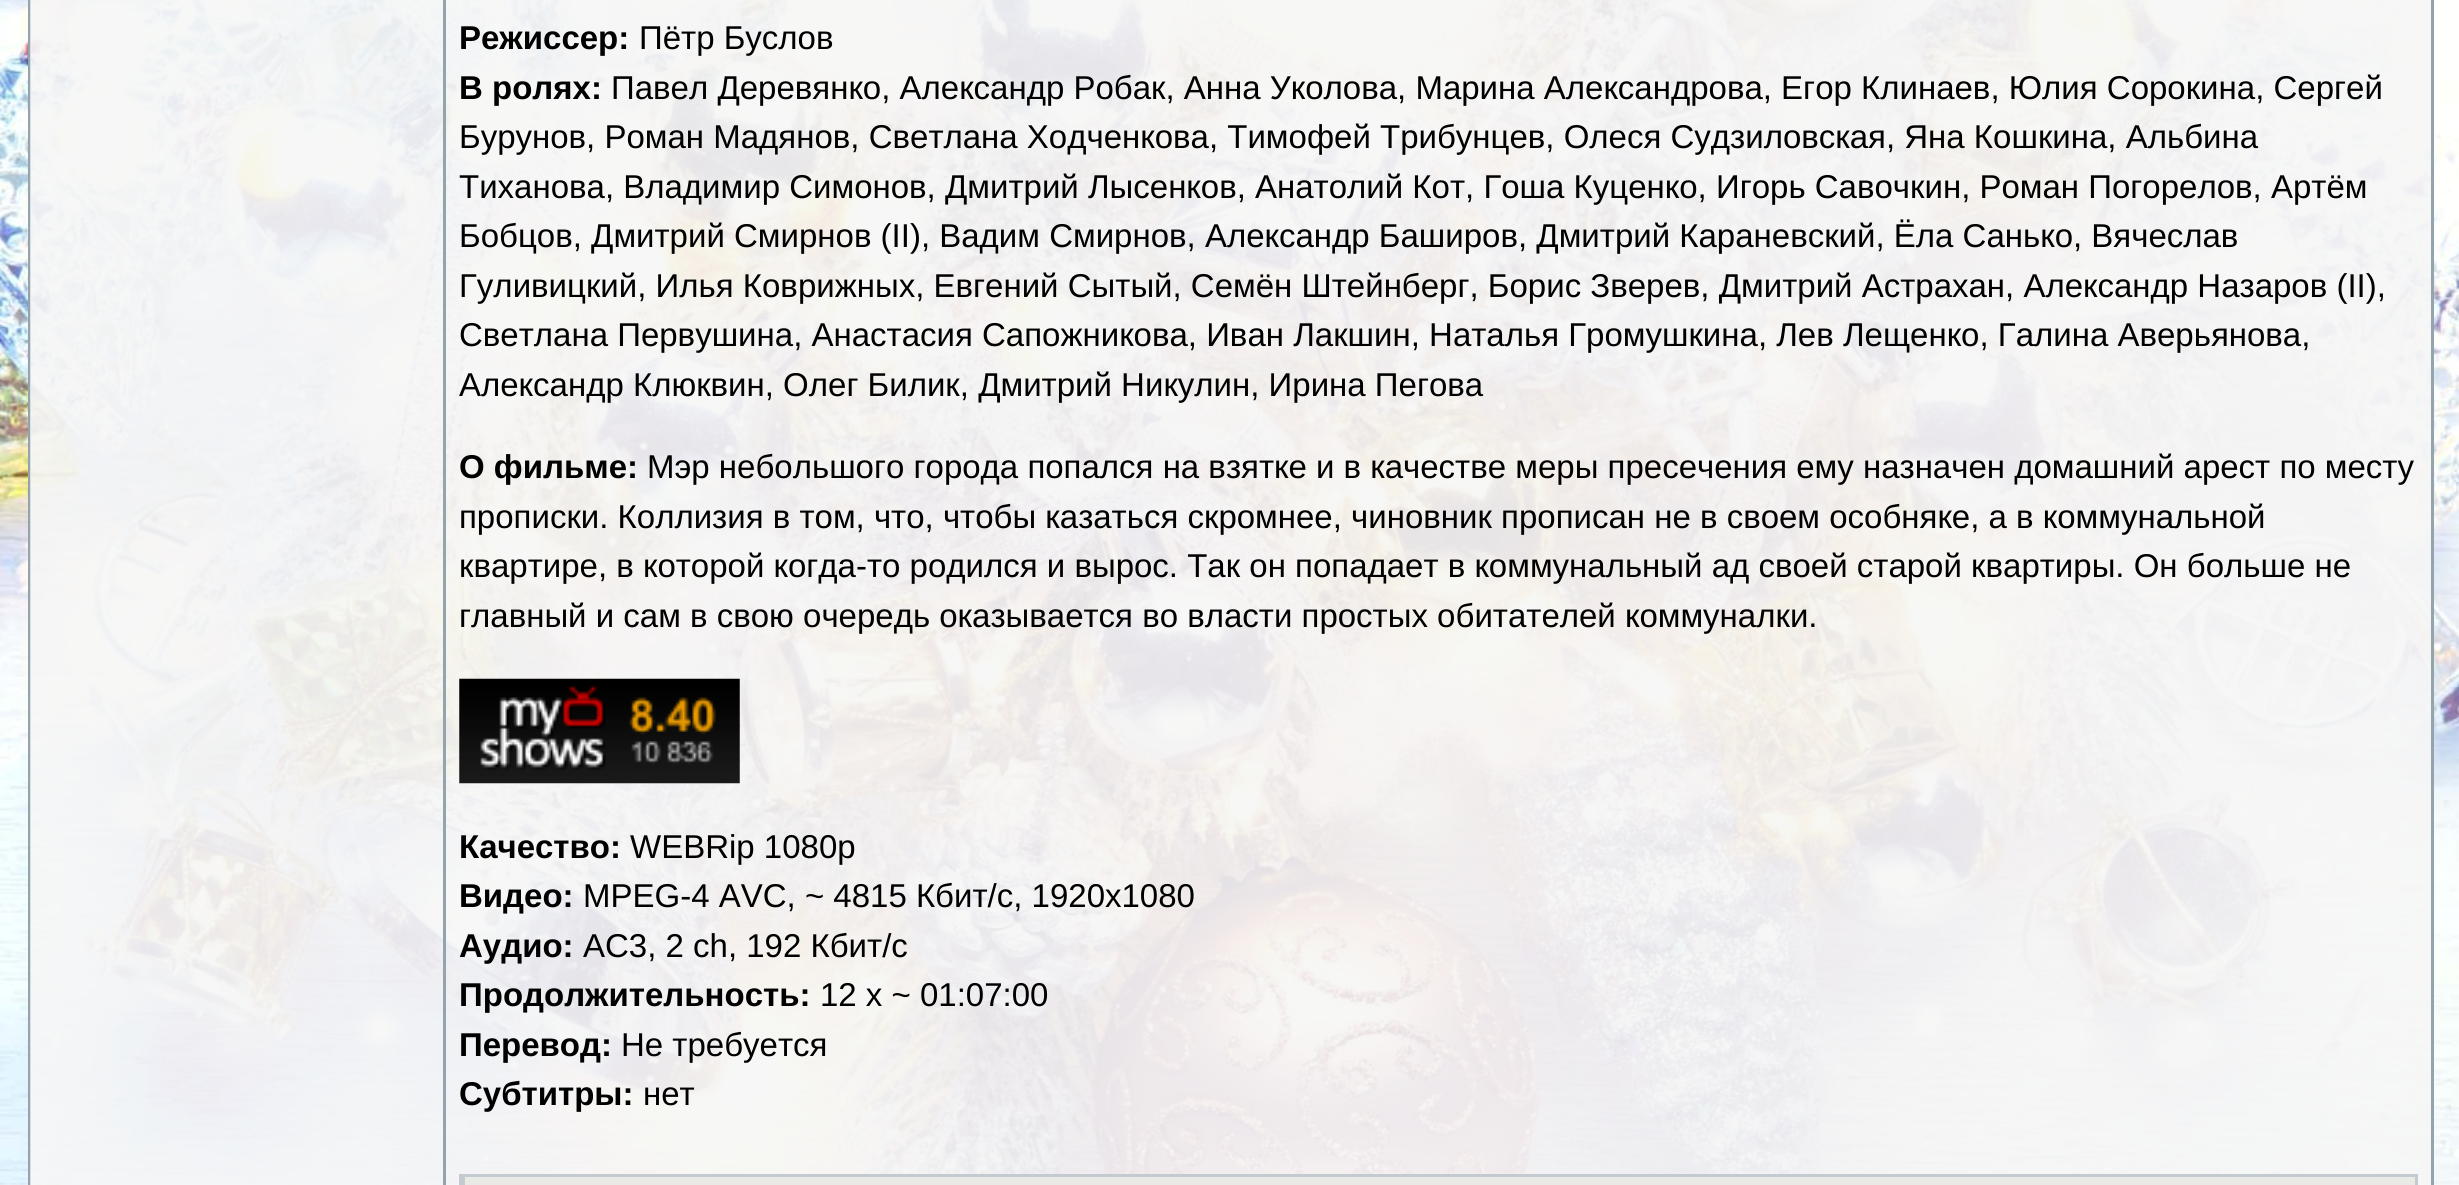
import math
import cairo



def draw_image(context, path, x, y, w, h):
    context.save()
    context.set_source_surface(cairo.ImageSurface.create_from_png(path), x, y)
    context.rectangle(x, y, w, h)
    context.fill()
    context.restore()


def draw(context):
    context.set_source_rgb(1, 1, 1)
    context.paint()
    draw_image(context, "images/1.png", 0, 0, 2459, 1185)
    context.set_source_rgb(147 / 255, 164 / 255, 173 / 255)
    context.rectangle(2431, 0, 3, 1185)
    context.fill()
    context.rectangle(28, 0, 2, 1185)
    context.fill()
    context.set_source_rgb(196 / 255, 205 / 255, 209 / 255)
    context.rectangle(30, 0, 1, 1185)
    context.fill()
    context.set_source_rgba(245 / 255, 245 / 255, 245 / 255, 0.5)
    context.rectangle(30, 0, 413, 1185)
    context.fill()
    context.set_source_rgb(147 / 255, 164 / 255, 173 / 255)
    context.rectangle(443, 0, 3, 1185)
    context.fill()
    context.set_source_rgba(245 / 255, 245 / 255, 245 / 255, 0.5)
    context.rectangle(446, 0, 1985, 1185)
    context.fill()
    draw_image(context, "images/2.png", 459, 678, 281, 106)
    context.set_source_rgb(233 / 255, 233 / 255, 230 / 255)
    context.rectangle(465, 1177, 1950, 8)
    context.fill()
    context.set_source_rgb(195 / 255, 203 / 255, 209 / 255)
    context.rectangle(459, 1174, 1958, 3)
    context.fill()
    context.rectangle(2415, 1174, 3, 11)
    context.fill()
    context.rectangle(459, 1174, 6, 11)
    context.fill()
    context.select_font_face("Liberation Sans", cairo.FontSlant.NORMAL, cairo.FontWeight.BOLD)
    context.set_font_size(33)
    context.set_source_rgb(0, 0, 0)
    context.move_to(459, 49)
    context.show_text("Режиссер:")
    context.select_font_face("Liberation Sans")
    context.move_to(639, 49)
    context.show_text("Пётр Буслов")
    context.select_font_face("Liberation Sans", cairo.FontSlant.NORMAL, cairo.FontWeight.BOLD)
    context.move_to(459, 99)
    context.show_text("В ролях:")
    context.select_font_face("Liberation Sans")
    context.move_to(611, 99)
    context.show_text("Павел Деревянко, Александр Робак, Анна Уколова, Марина Александрова, Егор Клинаев, Юлия Сорокина, Сергей")
    context.move_to(459, 148)
    context.show_text("Бурунов, Роман Мадянов, Светлана Ходченкова, Тимофей Трибунцев, Олеся Судзиловская, Яна Кошкина, Альбина")
    context.move_to(459, 198)
    context.show_text("Тиханова, Владимир Симонов, Дмитрий Лысенков, Анатолий Кот, Гоша Куценко, Игорь Савочкин, Роман Погорелов, Артём")
    context.move_to(459, 247)
    context.show_text("Бобцов, Дмитрий Смирнов (II), Вадим Смирнов, Александр Баширов, Дмитрий Караневский, Ёла Санько, Вячеслав")
    context.move_to(459, 297)
    context.show_text("Гуливицкий, Илья Коврижных, Евгений Сытый, Семён Штейнберг, Борис Зверев, Дмитрий Астрахан, Александр Назаров (II),")
    context.move_to(459, 346)
    context.show_text("Светлана Первушина, Анастасия Сапожникова, Иван Лакшин, Наталья Громушкина, Лев Лещенко, Галина Аверьянова,")
    context.move_to(459, 396)
    context.show_text("Александр Клюквин, Олег Билик, Дмитрий Никулин, Ирина Пегова")
    context.select_font_face("Liberation Sans", cairo.FontSlant.NORMAL, cairo.FontWeight.BOLD)
    context.move_to(459, 478)
    context.show_text("О фильме:")
    context.select_font_face("Liberation Sans")
    context.move_to(647, 478)
    context.show_text("Мэр небольшого города попался на взятке и в качестве меры пресечения ему назначен домашний арест по месту")
    context.move_to(459, 528)
    context.show_text("прописки. Коллизия в том, что, чтобы казаться скромнее, чиновник прописан не в своем особняке, а в коммунальной")
    context.move_to(459, 577)
    context.show_text("квартире, в которой когда-то родился и вырос. Так он попадает в коммунальный ад своей старой квартиры. Он больше не")
    context.move_to(459, 627)
    context.show_text("главный и сам в свою очередь оказывается во власти простых обитателей коммуналки.")
    context.select_font_face("Liberation Sans", cairo.FontSlant.NORMAL, cairo.FontWeight.BOLD)
    context.move_to(459, 858)
    context.show_text("Качество:")
    context.select_font_face("Liberation Sans")
    context.move_to(630, 858)
    context.show_text("WEBRip 1080p")
    context.select_font_face("Liberation Sans", cairo.FontSlant.NORMAL, cairo.FontWeight.BOLD)
    context.move_to(459, 907)
    context.show_text("Видео:")
    context.select_font_face("Liberation Sans")
    context.move_to(583, 907)
    context.show_text("MPEG-4 AVC, ~ 4815 Кбит/с, 1920x1080")
    context.select_font_face("Liberation Sans", cairo.FontSlant.NORMAL, cairo.FontWeight.BOLD)
    context.move_to(459, 957)
    context.show_text("Аудио:")
    context.select_font_face("Liberation Sans")
    context.move_to(583, 957)
    context.show_text("AC3, 2 ch, 192 Кбит/с")
    context.select_font_face("Liberation Sans", cairo.FontSlant.NORMAL, cairo.FontWeight.BOLD)
    context.move_to(459, 1006)
    context.show_text("Продолжительность:")
    context.select_font_face("Liberation Sans")
    context.move_to(820, 1006)
    context.show_text("12 х ~ 01:07:00")
    context.select_font_face("Liberation Sans", cairo.FontSlant.NORMAL, cairo.FontWeight.BOLD)
    context.move_to(459, 1056)
    context.show_text("Перевод:")
    context.select_font_face("Liberation Sans")
    context.move_to(621, 1056)
    context.show_text("Не требуется")
    context.select_font_face("Liberation Sans", cairo.FontSlant.NORMAL, cairo.FontWeight.BOLD)
    context.move_to(459, 1105)
    context.show_text("Cубтитры:")
    context.select_font_face("Liberation Sans")
    context.move_to(643, 1105)
    context.show_text("нет")


surface = cairo.ImageSurface(cairo.Format.RGB24, 2459, 1185)
context = cairo.Context(surface)
options = cairo.FontOptions()
options.set_hint_metrics(cairo.HintMetrics.OFF)
options.set_hint_style(cairo.HintStyle.NONE)
context.set_font_options(options)
context.set_miter_limit(4)
draw(context)
surface.write_to_png("out.png")
